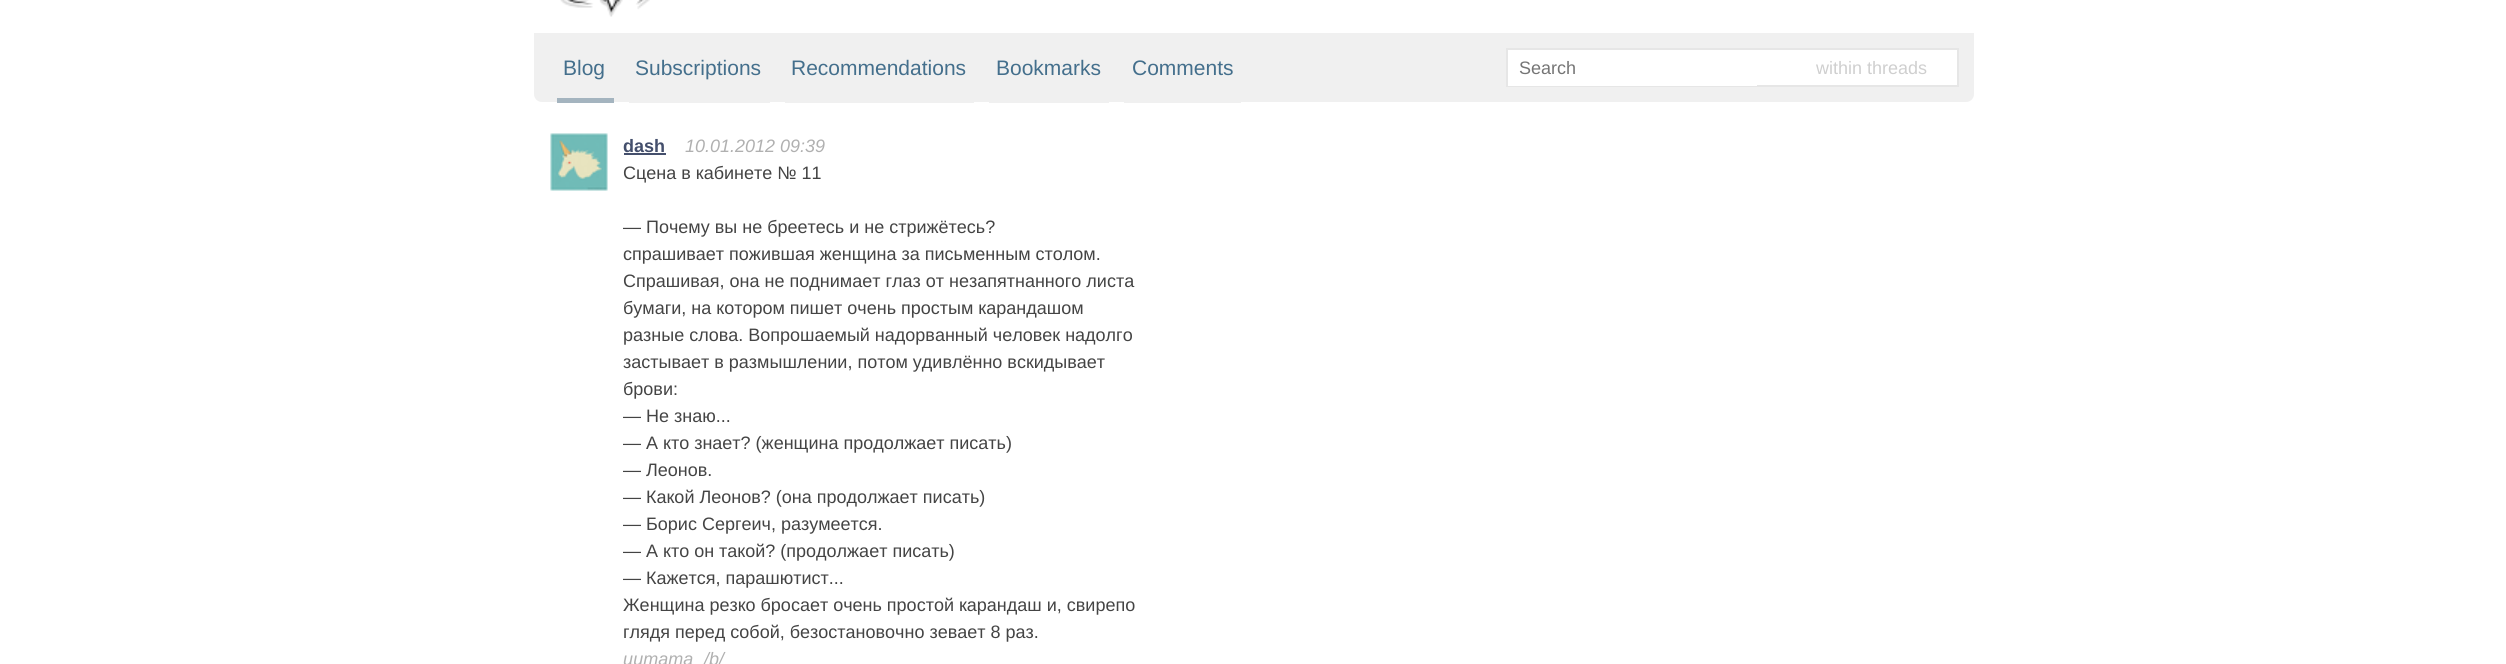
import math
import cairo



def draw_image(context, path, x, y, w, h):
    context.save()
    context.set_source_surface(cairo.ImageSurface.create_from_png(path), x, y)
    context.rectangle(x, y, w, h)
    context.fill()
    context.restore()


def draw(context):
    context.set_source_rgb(1, 1, 1)
    context.paint()
    draw_image(context, "images/1.png", 560, 0, 90, 17)
    context.set_source_rgb(240 / 255, 240 / 255, 240 / 255)
    context.new_path()
    context.move_to(534, 33)
    context.line_to(1974, 33)
    context.line_to(1974, 94)
    context.curve_to(1974, 98.5, 1970.5, 102, 1966, 102)
    context.line_to(542, 102)
    context.curve_to(537.5, 102, 534, 98.5, 534, 94)
    context.close_path()
    context.fill()
    context.set_source_rgb(164 / 255, 180 / 255, 191 / 255)
    context.rectangle(557, 98, 57, 5)
    context.fill()
    context.set_source_rgb(240 / 255, 240 / 255, 240 / 255)
    context.rectangle(629, 102, 141, 1)
    context.fill()
    context.rectangle(785, 102, 189, 1)
    context.fill()
    context.rectangle(989, 102, 120, 1)
    context.fill()
    context.rectangle(1124, 102, 117, 1)
    context.fill()
    context.set_source_rgb(1, 1, 1)
    context.rectangle(1757, 50, 200, 35)
    context.fill()
    context.rectangle(1507, 49, 451, 37)
    context.set_source_rgb(230 / 255, 230 / 255, 230 / 255)
    context.stroke()
    context.set_source_rgb(1, 1, 1)
    context.rectangle(1508, 50, 249, 36)
    context.fill()
    draw_image(context, "images/2.png", 550, 133, 58, 58)
    context.set_source_rgb(68 / 255, 79 / 255, 108 / 255)
    context.rectangle(624, 153, 42, 2)
    context.fill()
    context.select_font_face("Liberation Sans")
    context.set_font_size(21)
    context.set_source_rgb(68 / 255, 111 / 255, 140 / 255)
    context.move_to(563, 75)
    context.show_text("Blog")
    context.move_to(635, 75)
    context.show_text("Subscriptions")
    context.move_to(791, 75)
    context.show_text("Recommendations")
    context.move_to(996, 75)
    context.show_text("Bookmarks")
    context.move_to(1132, 75)
    context.show_text("Comments")
    context.set_font_size(18)
    context.set_source_rgb(117 / 255, 117 / 255, 117 / 255)
    context.move_to(1519, 74)
    context.show_text("Search")
    context.set_source_rgb(207 / 255, 207 / 255, 207 / 255)
    context.move_to(1816, 74)
    context.show_text("within threads")
    context.select_font_face("Liberation Sans", cairo.FontSlant.NORMAL, cairo.FontWeight.BOLD)
    context.set_source_rgb(68 / 255, 79 / 255, 108 / 255)
    context.move_to(623, 152)
    context.show_text("dash")
    context.select_font_face("Liberation Sans", cairo.FontSlant.ITALIC)
    context.set_source_rgb(176 / 255, 176 / 255, 176 / 255)
    context.move_to(685, 152)
    context.show_text("10.01.2012 09:39")
    context.select_font_face("Liberation Sans")
    context.set_source_rgb(68 / 255, 68 / 255, 68 / 255)
    context.move_to(623, 179)
    context.show_text("Сцена в кабинете № 11")
    context.move_to(623, 233)
    context.show_text("— Почему вы не бреетесь и не стрижётесь?")
    context.move_to(623, 260)
    context.show_text("спрашивает пожившая женщина за письменным столом.")
    context.move_to(623, 287)
    context.show_text("Спрашивая, она не поднимает глаз от незапятнанного листа")
    context.move_to(623, 314)
    context.show_text("бумаги, на котором пишет очень простым карандашом")
    context.move_to(623, 341)
    context.show_text("разные слова. Вопрошаемый надорванный человек надолго")
    context.move_to(623, 368)
    context.show_text("застывает в размышлении, потом удивлённо вскидывает")
    context.move_to(623, 395)
    context.show_text("брови:")
    context.move_to(623, 422)
    context.show_text("— Не знаю...")
    context.move_to(623, 449)
    context.show_text("— А кто знает? (женщина продолжает писать)")
    context.move_to(623, 476)
    context.show_text("— Леонов.")
    context.move_to(623, 503)
    context.show_text("— Какой Леонов? (она продолжает писать)")
    context.move_to(623, 530)
    context.show_text("— Борис Сергеич, разумеется.")
    context.move_to(623, 557)
    context.show_text("— А кто он такой? (продолжает писать)")
    context.move_to(623, 584)
    context.show_text("— Кажется, парашютист...")
    context.move_to(623, 611)
    context.show_text("Женщина резко бросает очень простой карандаш и, свирепо")
    context.move_to(623, 638)
    context.show_text("глядя перед собой, безостановочно зевает 8 раз.")
    context.select_font_face("Liberation Sans", cairo.FontSlant.ITALIC)
    context.set_source_rgb(176 / 255, 176 / 255, 176 / 255)
    context.move_to(623, 665)
    context.show_text("цитата")
    context.move_to(704, 665)
    context.show_text("/b/")


surface = cairo.ImageSurface(cairo.Format.RGB24, 2506, 664)
context = cairo.Context(surface)
options = cairo.FontOptions()
options.set_hint_metrics(cairo.HintMetrics.OFF)
options.set_hint_style(cairo.HintStyle.NONE)
context.set_font_options(options)
context.set_miter_limit(4)
draw(context)
surface.write_to_png("out.png")
